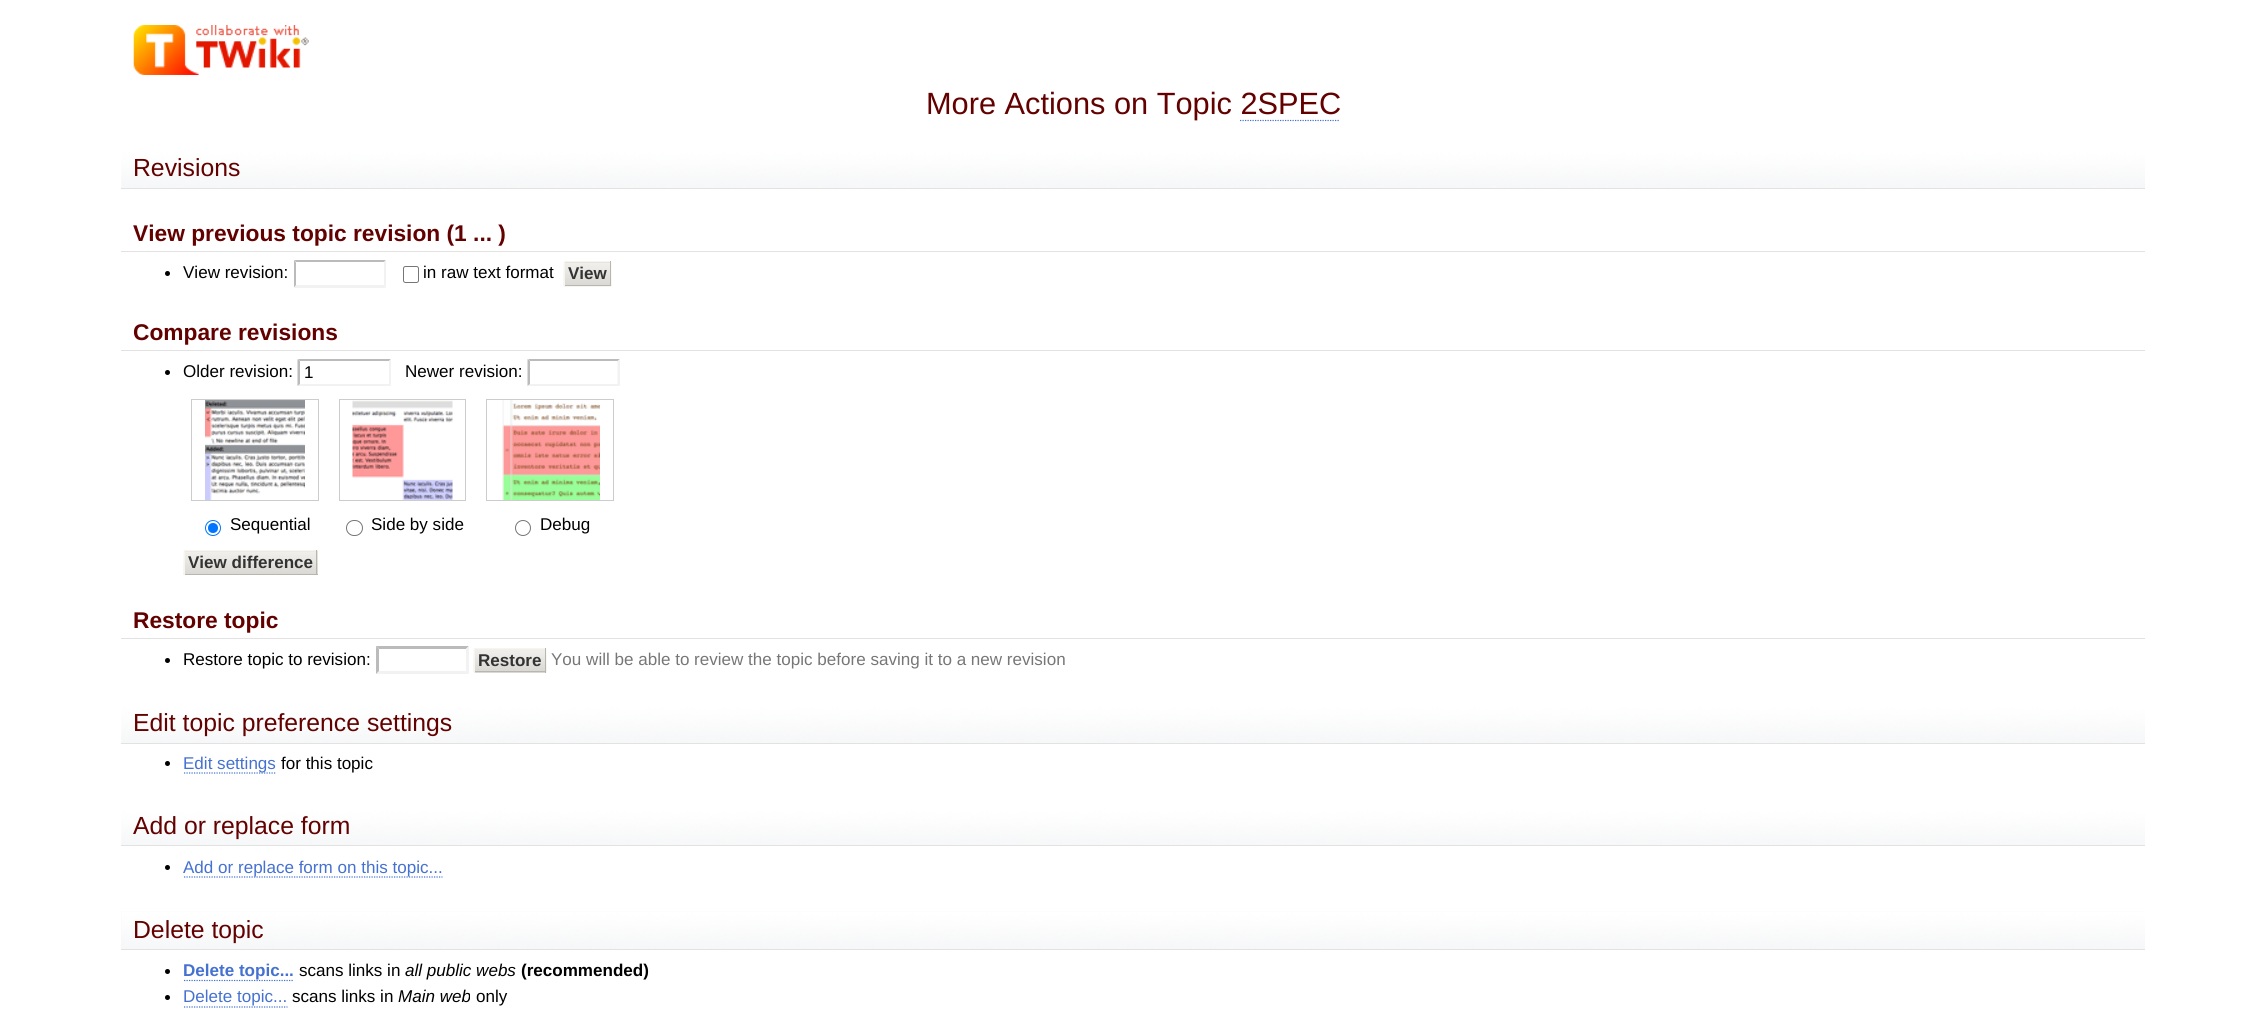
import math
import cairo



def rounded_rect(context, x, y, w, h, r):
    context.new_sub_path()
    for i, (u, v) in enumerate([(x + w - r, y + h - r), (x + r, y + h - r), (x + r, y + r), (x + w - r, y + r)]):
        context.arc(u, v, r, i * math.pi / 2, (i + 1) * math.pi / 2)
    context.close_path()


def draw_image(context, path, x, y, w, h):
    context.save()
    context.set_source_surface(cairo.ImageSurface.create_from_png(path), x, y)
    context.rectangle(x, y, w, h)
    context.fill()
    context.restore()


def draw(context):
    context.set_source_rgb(1, 1, 1)
    context.paint()
    draw_image(context, "images/1.png", 133, 25, 176, 50)
    draw_image(context, "images/2.png", 121, 150, 2024, 38)
    context.set_source_rgb(226 / 255, 226 / 255, 226 / 255)
    context.rectangle(121, 188, 2024, 1)
    context.fill()
    context.rectangle(121, 251, 2024, 1)
    context.fill()
    context.set_source_rgb(0, 0, 0)
    context.arc(167.5, 273.5, 2.5, 0, 2 * math.pi)
    context.fill()
    context.set_source_rgb(187 / 255, 187 / 255, 187 / 255)
    context.new_path()
    context.move_to(294, 260)
    context.line_to(386, 260)
    context.line_to(384, 262)
    context.line_to(296, 262)
    context.close_path()
    context.fill()
    context.set_source_rgb(242 / 255, 242 / 255, 242 / 255)
    context.new_path()
    context.move_to(386, 260)
    context.line_to(386, 287.5)
    context.line_to(384, 285)
    context.line_to(384, 262.5)
    context.close_path()
    context.fill()
    context.new_path()
    context.move_to(386, 288)
    context.line_to(294, 288)
    context.line_to(296, 285)
    context.line_to(384, 285)
    context.close_path()
    context.fill()
    context.set_source_rgb(187 / 255, 187 / 255, 187 / 255)
    context.new_path()
    context.move_to(294, 287.5)
    context.line_to(294, 260)
    context.line_to(296, 262.5)
    context.line_to(296, 285)
    context.close_path()
    context.fill()
    rounded_rect(context, 403.5, 266.5, 15, 16, 2)
    context.set_source_rgb(118 / 255, 118 / 255, 118 / 255)
    context.set_line_width(1)
    context.stroke()
    context.set_source_rgb(219 / 255, 217 / 255, 207 / 255)
    context.rectangle(565, 262, 45, 1)
    context.fill()
    draw_image(context, "images/3.png", 563, 262, 49, 25)
    context.set_source_rgb(248 / 255, 246 / 255, 236 / 255)
    context.rectangle(564, 261, 47, 1)
    context.fill()
    context.set_source_rgb(184 / 255, 182 / 255, 173 / 255)
    context.rectangle(610, 261, 1, 25)
    context.fill()
    context.rectangle(564, 285, 47, 1)
    context.fill()
    context.set_source_rgb(248 / 255, 246 / 255, 236 / 255)
    context.rectangle(564, 261, 1, 25)
    context.fill()
    context.set_source_rgb(226 / 255, 226 / 255, 226 / 255)
    context.rectangle(121, 350, 2024, 1)
    context.fill()
    context.set_source_rgb(0, 0, 0)
    context.arc(167.5, 372.5, 2.5, 0, 2 * math.pi)
    context.fill()
    context.set_source_rgb(187 / 255, 187 / 255, 187 / 255)
    context.new_path()
    context.move_to(298, 359)
    context.line_to(391, 359)
    context.line_to(389, 361)
    context.line_to(300, 361)
    context.close_path()
    context.fill()
    context.set_source_rgb(242 / 255, 242 / 255, 242 / 255)
    context.new_path()
    context.move_to(391, 359)
    context.line_to(391, 386)
    context.line_to(389, 384)
    context.line_to(389, 361)
    context.close_path()
    context.fill()
    context.new_path()
    context.move_to(391, 386)
    context.line_to(298, 386)
    context.line_to(300, 384)
    context.line_to(389, 384)
    context.close_path()
    context.fill()
    context.set_source_rgb(187 / 255, 187 / 255, 187 / 255)
    context.new_path()
    context.move_to(297.5, 386)
    context.line_to(297.5, 359)
    context.line_to(300, 361)
    context.line_to(300, 384)
    context.close_path()
    context.fill()
    context.new_path()
    context.move_to(528, 359)
    context.line_to(620, 359)
    context.line_to(618, 361)
    context.line_to(530, 361)
    context.close_path()
    context.fill()
    context.set_source_rgb(242 / 255, 242 / 255, 242 / 255)
    context.new_path()
    context.move_to(620, 359)
    context.line_to(620, 386)
    context.line_to(617.5, 384)
    context.line_to(617.5, 361)
    context.close_path()
    context.fill()
    context.new_path()
    context.move_to(620, 386)
    context.line_to(528, 386)
    context.line_to(530, 384)
    context.line_to(618, 384)
    context.close_path()
    context.fill()
    context.set_source_rgb(187 / 255, 187 / 255, 187 / 255)
    context.new_path()
    context.move_to(527.5, 386)
    context.line_to(527.5, 359)
    context.line_to(530, 361)
    context.line_to(530, 384)
    context.close_path()
    context.fill()
    context.rectangle(191.5, 399.5, 127, 101)
    context.set_source_rgb(204 / 255, 204 / 255, 204 / 255)
    context.stroke()
    draw_image(context, "images/4.png", 205, 400, 100, 100)
    context.rectangle(339.5, 399.5, 126, 101)
    context.stroke()
    draw_image(context, "images/5.png", 352, 400, 101, 100)
    context.rectangle(486.5, 399.5, 127, 101)
    context.stroke()
    draw_image(context, "images/6.png", 502, 400, 98, 100)
    context.arc(213, 528, 7.5, 0, 2 * math.pi)
    context.set_source_rgb(0, 117 / 255, 1)
    context.stroke()
    context.arc(213, 528, 5, 0, 2 * math.pi)
    context.fill()
    rounded_rect(context, 346.5, 520.5, 16, 15, 7.5)
    context.set_source_rgb(118 / 255, 118 / 255, 118 / 255)
    context.stroke()
    context.arc(523, 528, 7.5, 0, 2 * math.pi)
    context.stroke()
    context.set_source_rgb(219 / 255, 217 / 255, 207 / 255)
    context.rectangle(185, 551, 133, 23)
    context.fill()
    draw_image(context, "images/7.png", 183, 551, 135, 24)
    context.set_source_rgb(248 / 255, 246 / 255, 236 / 255)
    context.rectangle(184, 550, 134, 1)
    context.fill()
    context.set_source_rgb(184 / 255, 182 / 255, 173 / 255)
    context.rectangle(316, 550, 1, 25)
    context.fill()
    context.rectangle(184, 574, 134, 1)
    context.fill()
    context.set_source_rgb(248 / 255, 246 / 255, 236 / 255)
    context.rectangle(184, 550, 1, 25)
    context.fill()
    context.set_source_rgb(226 / 255, 226 / 255, 226 / 255)
    context.rectangle(121, 638, 2024, 1)
    context.fill()
    context.set_source_rgb(0, 0, 0)
    context.arc(167.5, 660.5, 2.5, 0, 2 * math.pi)
    context.fill()
    context.set_source_rgb(187 / 255, 187 / 255, 187 / 255)
    context.new_path()
    context.move_to(376, 646)
    context.line_to(469, 646)
    context.line_to(466, 649)
    context.line_to(379, 649)
    context.close_path()
    context.fill()
    context.set_source_rgb(242 / 255, 242 / 255, 242 / 255)
    context.new_path()
    context.move_to(469, 646)
    context.line_to(469, 674)
    context.line_to(466, 671)
    context.line_to(466, 649)
    context.close_path()
    context.fill()
    context.new_path()
    context.move_to(469, 674)
    context.line_to(376, 674)
    context.line_to(379, 671)
    context.line_to(466, 671)
    context.close_path()
    context.fill()
    context.set_source_rgb(187 / 255, 187 / 255, 187 / 255)
    context.new_path()
    context.move_to(376, 674)
    context.line_to(376, 646)
    context.line_to(379, 649)
    context.line_to(379, 671)
    context.close_path()
    context.fill()
    context.set_source_rgb(219 / 255, 217 / 255, 207 / 255)
    context.rectangle(475, 672, 70, 1)
    context.fill()
    draw_image(context, "images/8.png", 473, 648, 74, 25)
    context.set_source_rgb(248 / 255, 246 / 255, 236 / 255)
    context.rectangle(474, 648, 72, 1)
    context.fill()
    context.set_source_rgb(184 / 255, 182 / 255, 173 / 255)
    context.rectangle(545, 648, 1, 25)
    context.fill()
    context.rectangle(474, 671, 72, 1)
    context.fill()
    context.set_source_rgb(248 / 255, 246 / 255, 236 / 255)
    context.rectangle(474, 648, 1, 25)
    context.fill()
    draw_image(context, "images/9.png", 121, 705, 2024, 38)
    context.set_source_rgb(226 / 255, 226 / 255, 226 / 255)
    context.rectangle(121, 743, 2024, 1)
    context.fill()
    context.set_source_rgb(0, 0, 0)
    context.arc(167.5, 763.5, 2.5, 0, 2 * math.pi)
    context.fill()
    context.new_path()
    context.move_to(184, 773)
    context.line_to(276, 773)
    context.set_source_rgb(69 / 255, 113 / 255, 208 / 255)
    context.set_line_width(1.2)
    context.set_dash([1.25, 1.25])
    context.stroke()
    draw_image(context, "images/10.png", 121, 809, 2024, 36)
    context.set_source_rgb(226 / 255, 226 / 255, 226 / 255)
    context.rectangle(121, 845, 2024, 1)
    context.fill()
    context.set_source_rgb(0, 0, 0)
    context.arc(167.5, 867.5, 2.5, 0, 2 * math.pi)
    context.fill()
    context.new_path()
    context.move_to(184, 877)
    context.line_to(442.5, 877)
    context.set_source_rgb(69 / 255, 113 / 255, 208 / 255)
    context.stroke()
    context.set_source_rgb(246 / 255, 246 / 255, 246 / 255)
    context.rectangle(121, 911, 2024, 38)
    context.fill()
    draw_image(context, "images/11.png", 121, 911, 2024, 38)
    context.set_source_rgb(226 / 255, 226 / 255, 226 / 255)
    context.rectangle(121, 949, 2024, 1)
    context.fill()
    context.set_source_rgb(0, 0, 0)
    context.arc(167.5, 971.5, 2.5, 0, 2 * math.pi)
    context.fill()
    context.new_path()
    context.move_to(184, 980.5)
    context.line_to(294, 980.5)
    context.set_source_rgb(69 / 255, 113 / 255, 208 / 255)
    context.stroke()
    context.set_source_rgb(0, 0, 0)
    context.arc(167.5, 997.5, 2.5, 0, 2 * math.pi)
    context.fill()
    context.new_path()
    context.move_to(184, 1007)
    context.line_to(287.5, 1007)
    context.set_source_rgb(69 / 255, 113 / 255, 208 / 255)
    context.stroke()
    context.select_font_face("Liberation Sans")
    context.set_font_size(30.75)
    context.set_source_rgb(99 / 255, 0, 0)
    context.move_to(926, 114)
    context.show_text("More Actions on Topic 2SPEC")
    context.new_path()
    context.move_to(1240, 120.5)
    context.line_to(1340, 120.5)
    context.set_source_rgb(69 / 255, 113 / 255, 208 / 255)
    context.stroke()
    context.set_font_size(24.75)
    context.set_source_rgb(99 / 255, 0, 0)
    context.move_to(133, 176)
    context.show_text("Revisions")
    context.select_font_face("Liberation Sans", cairo.FontSlant.NORMAL, cairo.FontWeight.BOLD)
    context.set_font_size(22.75)
    context.move_to(133, 241)
    context.show_text("View previous topic revision (1 ... )")
    context.select_font_face("Liberation Sans")
    context.set_font_size(17.05)
    context.set_source_rgb(0, 0, 0)
    context.move_to(183, 278)
    context.show_text("View revision:")
    context.move_to(423, 278)
    context.show_text("in raw text format")
    context.select_font_face("Liberation Sans", cairo.FontSlant.NORMAL, cairo.FontWeight.BOLD)
    context.set_source_rgb(51 / 255, 51 / 255, 51 / 255)
    context.move_to(568, 279)
    context.show_text("View")
    context.set_font_size(22.75)
    context.set_source_rgb(99 / 255, 0, 0)
    context.move_to(133, 340)
    context.show_text("Compare revisions")
    context.select_font_face("Liberation Sans")
    context.set_font_size(17.05)
    context.set_source_rgb(0, 0, 0)
    context.move_to(183, 377)
    context.show_text("Older revision:")
    context.move_to(304, 378)
    context.show_text("1")
    context.move_to(405, 377)
    context.show_text("Newer revision:")
    context.move_to(230, 530)
    context.show_text("Sequential")
    context.move_to(371, 530)
    context.show_text("Side by side")
    context.move_to(540, 530)
    context.show_text("Debug")
    context.select_font_face("Liberation Sans", cairo.FontSlant.NORMAL, cairo.FontWeight.BOLD)
    context.set_source_rgb(51 / 255, 51 / 255, 51 / 255)
    context.move_to(188, 568)
    context.show_text("View difference")
    context.set_font_size(22.75)
    context.set_source_rgb(99 / 255, 0, 0)
    context.move_to(133, 628)
    context.show_text("Restore topic")
    context.select_font_face("Liberation Sans")
    context.set_font_size(17.05)
    context.set_source_rgb(0, 0, 0)
    context.move_to(183, 665)
    context.show_text("Restore topic to revision:")
    context.select_font_face("Liberation Sans", cairo.FontSlant.NORMAL, cairo.FontWeight.BOLD)
    context.set_source_rgb(51 / 255, 51 / 255, 51 / 255)
    context.move_to(478, 666)
    context.show_text("Restore")
    context.select_font_face("Liberation Sans")
    context.set_source_rgb(119 / 255, 119 / 255, 119 / 255)
    context.move_to(551, 665)
    context.show_text("You will be able to review the topic before saving it to a new revision")
    context.set_font_size(24.75)
    context.set_source_rgb(99 / 255, 0, 0)
    context.move_to(133, 731)
    context.show_text("Edit topic preference settings")
    context.set_font_size(17.05)
    context.set_source_rgb(69 / 255, 113 / 255, 208 / 255)
    context.move_to(183, 769)
    context.show_text("Edit settings")
    context.set_source_rgb(0, 0, 0)
    context.move_to(281, 769)
    context.show_text("for this topic")
    context.set_font_size(24.75)
    context.set_source_rgb(99 / 255, 0, 0)
    context.move_to(133, 834)
    context.show_text("Add or replace form")
    context.set_font_size(17.05)
    context.set_source_rgb(69 / 255, 113 / 255, 208 / 255)
    context.move_to(183, 873)
    context.show_text("Add or replace form on this topic...")
    context.set_font_size(24.75)
    context.set_source_rgb(99 / 255, 0, 0)
    context.move_to(133, 938)
    context.show_text("Delete topic")
    context.select_font_face("Liberation Sans", cairo.FontSlant.NORMAL, cairo.FontWeight.BOLD)
    context.set_font_size(17.05)
    context.set_source_rgb(69 / 255, 113 / 255, 208 / 255)
    context.move_to(183, 976)
    context.show_text("Delete topic...")
    context.select_font_face("Liberation Sans")
    context.set_source_rgb(0, 0, 0)
    context.move_to(299, 976)
    context.show_text("scans links in")
    context.select_font_face("Liberation Sans", cairo.FontSlant.ITALIC)
    context.move_to(405, 976)
    context.show_text("all public webs")
    context.select_font_face("Liberation Sans", cairo.FontSlant.NORMAL, cairo.FontWeight.BOLD)
    context.move_to(521, 976)
    context.show_text("(recommended)")
    context.select_font_face("Liberation Sans")
    context.set_source_rgb(69 / 255, 113 / 255, 208 / 255)
    context.move_to(183, 1002)
    context.show_text("Delete topic...")
    context.set_source_rgb(0, 0, 0)
    context.move_to(292, 1002)
    context.show_text("scans links in")
    context.select_font_face("Liberation Sans", cairo.FontSlant.ITALIC)
    context.move_to(398, 1002)
    context.show_text("Main web")
    context.select_font_face("Liberation Sans")
    context.move_to(476, 1002)
    context.show_text("only")


surface = cairo.ImageSurface(cairo.Format.RGB24, 2266, 1021)
context = cairo.Context(surface)
options = cairo.FontOptions()
options.set_hint_metrics(cairo.HintMetrics.OFF)
options.set_hint_style(cairo.HintStyle.NONE)
context.set_font_options(options)
context.set_miter_limit(4)
draw(context)
surface.write_to_png("out.png")
